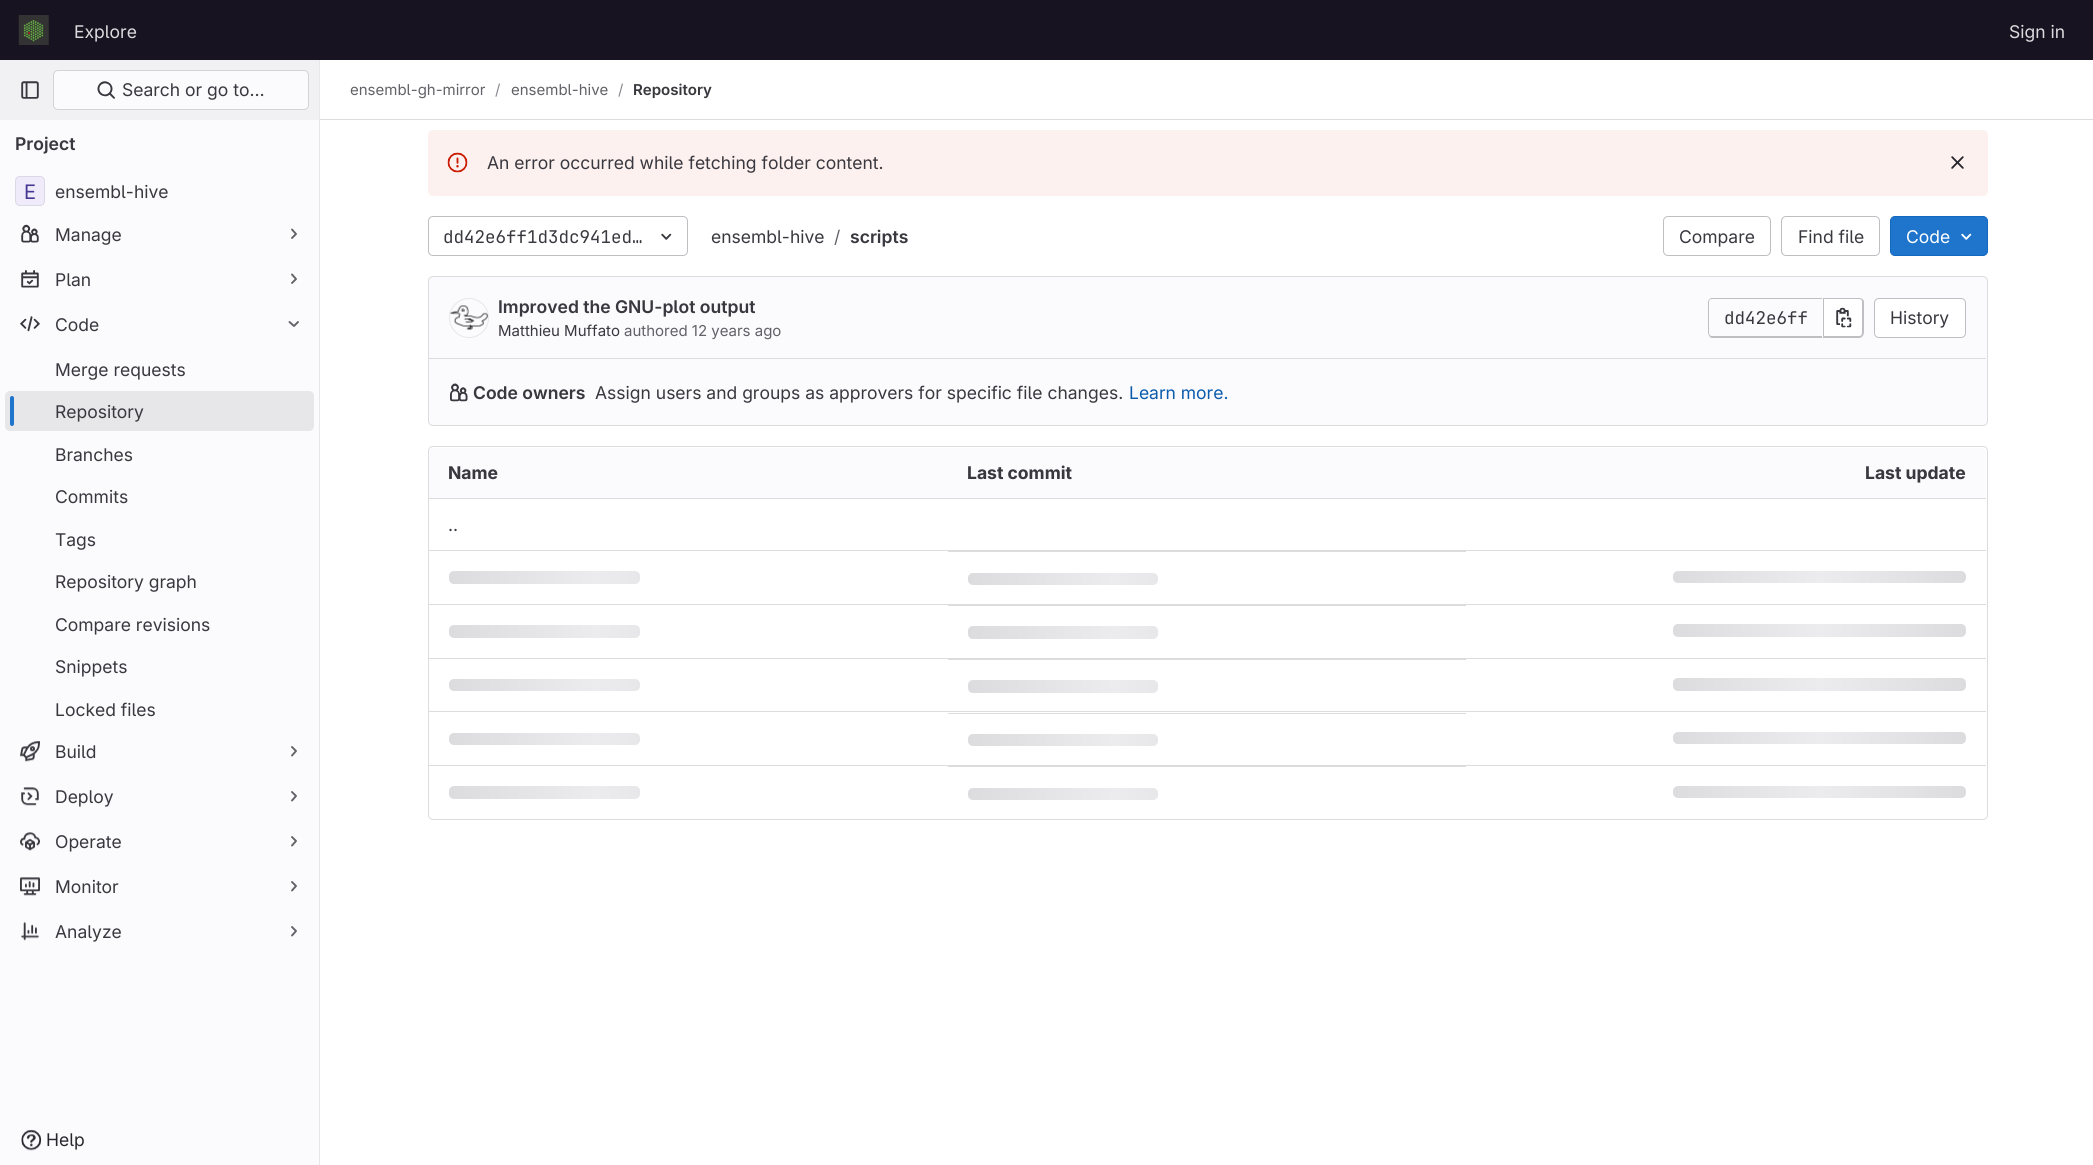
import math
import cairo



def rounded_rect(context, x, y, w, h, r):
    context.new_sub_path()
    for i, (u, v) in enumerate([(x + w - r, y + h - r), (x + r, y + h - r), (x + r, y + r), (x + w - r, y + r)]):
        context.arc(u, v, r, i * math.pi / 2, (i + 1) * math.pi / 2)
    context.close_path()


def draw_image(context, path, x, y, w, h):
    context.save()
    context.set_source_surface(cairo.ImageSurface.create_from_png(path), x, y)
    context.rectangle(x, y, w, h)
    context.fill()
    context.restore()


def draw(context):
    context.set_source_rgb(1, 1, 1)
    context.paint()
    context.set_source_rgb(23 / 255, 19 / 255, 33 / 255)
    context.rectangle(0, 0, 2093, 60)
    context.fill()
    draw_image(context, "images/1.png", 18, 15, 31, 30)
    context.set_source_rgb(251 / 255, 250 / 255, 253 / 255)
    context.rectangle(0, 120, 319, 1045)
    context.fill()
    context.set_source_rgb(231 / 255, 230 / 255, 233 / 255)
    context.rectangle(319, 60, 1, 1105)
    context.fill()
    context.set_source_rgb(241 / 255, 240 / 255, 243 / 255)
    context.rectangle(0, 60, 319, 60)
    context.fill()
    draw_image(context, "images/2.png", 21, 81, 18, 18)
    context.set_source_rgb(251 / 255, 250 / 255, 253 / 255)
    rounded_rect(context, 53, 70, 256, 40, 5)
    context.fill()
    rounded_rect(context, 53.5, 70.5, 255, 39, 4.5)
    context.set_source_rgba(5 / 255, 5 / 255, 6 / 255, 0.16)
    context.set_line_width(1)
    context.stroke()
    draw_image(context, "images/3.png", 97, 81, 18, 18)
    context.set_source_rgb(239 / 255, 235 / 255, 250 / 255)
    rounded_rect(context, 15, 176, 30, 30, 5)
    context.fill()
    rounded_rect(context, 15.5, 176.5, 29, 29, 4.5)
    context.set_source_rgba(5 / 255, 5 / 255, 6 / 255, 0.08)
    context.stroke()
    draw_image(context, "images/4.png", 21, 224, 18, 19)
    context.new_path()
    context.move_to(292, 229.5)
    context.line_to(296, 234)
    context.line_to(292, 238)
    context.set_source_rgb(98 / 255, 97 / 255, 104 / 255)
    context.set_line_width(1.9)
    context.set_line_cap(cairo.LineCap.ROUND)
    context.set_line_join(cairo.LineJoin.ROUND)
    context.stroke()
    draw_image(context, "images/5.png", 21, 270, 18, 18)
    context.new_path()
    context.move_to(292, 274.5)
    context.line_to(296, 279)
    context.line_to(292, 283)
    context.stroke()
    draw_image(context, "images/6.png", 20, 316, 20, 16)
    context.new_path()
    context.move_to(298, 322)
    context.line_to(294, 326)
    context.line_to(289.5, 322)
    context.stroke()
    context.set_source_rgb(231 / 255, 230 / 255, 233 / 255)
    rounded_rect(context, 5, 391, 309, 40, 5)
    context.fill()
    context.set_source_rgb(31 / 255, 117 / 255, 203 / 255)
    rounded_rect(context, 10, 396, 4, 30, 2)
    context.fill()
    draw_image(context, "images/7.png", 20, 741, 20, 21)
    context.new_path()
    context.move_to(292, 747)
    context.line_to(296, 751)
    context.line_to(292, 755.5)
    context.set_source_rgb(98 / 255, 97 / 255, 104 / 255)
    context.stroke()
    draw_image(context, "images/8.png", 21, 787, 18, 19)
    context.new_path()
    context.move_to(292, 792)
    context.line_to(296, 796)
    context.line_to(292, 800.5)
    context.stroke()
    draw_image(context, "images/9.png", 20, 832, 20, 19)
    context.new_path()
    context.move_to(292, 837)
    context.line_to(296, 841)
    context.line_to(292, 845.5)
    context.stroke()
    draw_image(context, "images/10.png", 20, 877, 20, 19)
    context.new_path()
    context.move_to(292, 882)
    context.line_to(296, 886)
    context.line_to(292, 890.5)
    context.stroke()
    draw_image(context, "images/11.png", 21, 922, 18, 19)
    context.new_path()
    context.move_to(292, 927)
    context.line_to(296, 931)
    context.line_to(292, 935.5)
    context.stroke()
    draw_image(context, "images/12.png", 21, 1129, 21, 22)
    context.set_source_rgb(220 / 255, 220 / 255, 222 / 255)
    context.rectangle(320, 119, 1773, 1)
    context.fill()
    context.set_source_rgb(252 / 255, 241 / 255, 239 / 255)
    rounded_rect(context, 428, 130, 1560, 66, 5)
    context.fill()
    draw_image(context, "images/13.png", 447, 152, 21, 21)
    draw_image(context, "images/14.png", 1951, 156, 13, 13)
    rounded_rect(context, 428.5, 216.5, 259, 39, 4.5)
    context.set_source_rgb(191 / 255, 191 / 255, 195 / 255)
    context.set_line_width(1)
    context.set_line_cap(cairo.LineCap.BUTT)
    context.set_line_join(cairo.LineJoin.MITER)
    context.stroke()
    draw_image(context, "images/15.png", 661, 233, 11, 7)
    rounded_rect(context, 1663.5, 216.5, 107, 39, 4.5)
    context.stroke()
    rounded_rect(context, 1781.5, 216.5, 98, 39, 4.5)
    context.stroke()
    context.set_source_rgb(31 / 255, 117 / 255, 203 / 255)
    rounded_rect(context, 1890.5, 216.5, 97, 39, 4.5)
    context.fill_preserve()
    context.set_source_rgb(16 / 255, 104 / 255, 191 / 255)
    context.stroke()
    draw_image(context, "images/16.png", 1961, 233, 11, 7)
    context.set_source_rgb(251 / 255, 250 / 255, 253 / 255)
    rounded_rect(context, 428.5, 276.5, 1559, 149, 4.5)
    context.fill_preserve()
    context.set_source_rgb(220 / 255, 220 / 255, 222 / 255)
    context.stroke()
    draw_image(context, "images/17.png", 449, 305, 39, 25)
    context.arc(469, 318, 19.5, 0, 2 * math.pi)
    context.set_source_rgba(5 / 255, 5 / 255, 6 / 255, 0.08)
    context.stroke()
    context.set_source_rgb(191 / 255, 191 / 255, 195 / 255)
    context.set_fill_rule(cairo.FillRule.EVEN_ODD)
    context.new_path()
    context.move_to(1712, 298)
    context.line_to(1822, 298)
    context.line_to(1822, 338)
    context.line_to(1712, 338)
    context.curve_to(1710, 338, 1708, 335, 1708, 332)
    context.line_to(1708, 302)
    context.curve_to(1708, 300, 1710, 298, 1712, 298)
    context.close_path()
    context.move_to(1712, 299)
    context.line_to(1822, 299)
    context.line_to(1822, 336)
    context.line_to(1712, 336)
    context.curve_to(1710, 336, 1709, 335, 1709, 332)
    context.line_to(1709, 302)
    context.curve_to(1709, 300, 1710, 299, 1712, 299)
    context.close_path()
    context.fill()
    context.set_source_rgb(1, 1, 1)
    context.new_path()
    context.move_to(1824, 299)
    context.line_to(1859, 299)
    context.curve_to(1861, 299, 1863, 301, 1863, 303)
    context.line_to(1863, 332)
    context.curve_to(1863, 334, 1861, 336, 1859, 336)
    context.line_to(1824, 336)
    context.close_path()
    context.fill()
    context.set_source_rgb(191 / 255, 191 / 255, 195 / 255)
    context.new_path()
    context.move_to(1824, 298)
    context.line_to(1859, 298)
    context.curve_to(1862, 298, 1864, 300, 1864, 302)
    context.line_to(1864, 332)
    context.curve_to(1864, 335, 1862, 338, 1859, 338)
    context.line_to(1824, 338)
    context.close_path()
    context.move_to(1824, 299)
    context.line_to(1859, 299)
    context.curve_to(1861, 299, 1862, 300, 1862, 302)
    context.line_to(1862, 332)
    context.curve_to(1862, 335, 1861, 336, 1859, 336)
    context.line_to(1824, 336)
    context.close_path()
    context.fill()
    context.rectangle(1823, 298, 1, 40)
    context.fill()
    draw_image(context, "images/18.png", 1836, 307, 16, 21)
    context.set_source_rgb(1, 1, 1)
    rounded_rect(context, 1874.5, 298.5, 91, 39, 4.5)
    context.fill_preserve()
    context.set_source_rgb(191 / 255, 191 / 255, 195 / 255)
    context.stroke()
    context.set_source_rgb(220 / 255, 220 / 255, 222 / 255)
    context.rectangle(429, 358, 1557, 1)
    context.fill()
    draw_image(context, "images/19.png", 450, 383, 18, 19)
    rounded_rect(context, 428.5, 446.5, 1559, 373, 4.5)
    context.stroke()
    context.set_source_rgb(251 / 255, 250 / 255, 253 / 255)
    context.new_path()
    context.move_to(433, 448)
    context.line_to(948, 448)
    context.line_to(948, 499)
    context.line_to(429, 499)
    context.line_to(429, 452)
    context.curve_to(429, 450, 431, 448, 433, 448)
    context.close_path()
    context.fill()
    context.rectangle(948, 448, 518, 50)
    context.fill()
    context.new_path()
    context.move_to(1466, 448)
    context.line_to(1982, 448)
    context.curve_to(1984, 448, 1986, 450, 1986, 452)
    context.line_to(1986, 499)
    context.line_to(1466, 499)
    context.close_path()
    context.fill()
    context.set_source_rgb(220 / 255, 220 / 255, 222 / 255)
    context.rectangle(429, 550, 1557, 1)
    context.fill()
    context.rectangle(429, 498, 1557, 1)
    context.fill()
    context.rectangle(429, 604, 1557, 1)
    context.fill()
    gradient = cairo.LinearGradient(449, 571, 743, 571)
    gradient.add_color_stop_rgba(0, 220 / 255, 220 / 255, 222 / 255, 1)
    gradient.add_color_stop_rgba(0.5, 236 / 255, 236 / 255, 239 / 255, 1)
    gradient.add_color_stop_rgba(1, 220 / 255, 220 / 255, 222 / 255, 1)
    context.set_source(gradient)
    rounded_rect(context, 449, 571, 191, 13, 5)
    context.fill()
    context.set_source_rgb(220 / 255, 220 / 255, 222 / 255)
    context.rectangle(948, 551, 518, 1)
    context.fill()
    gradient = cairo.LinearGradient(968, 573, 1261, 573)
    gradient.add_color_stop_rgba(0, 220 / 255, 220 / 255, 222 / 255, 1)
    gradient.add_color_stop_rgba(0.5, 236 / 255, 236 / 255, 239 / 255, 1)
    gradient.add_color_stop_rgba(1, 220 / 255, 220 / 255, 222 / 255, 1)
    context.set_source(gradient)
    rounded_rect(context, 968, 573, 190, 12, 5)
    context.fill()
    gradient = cairo.LinearGradient(1673, 571, 1966, 571)
    gradient.add_color_stop_rgba(0, 220 / 255, 220 / 255, 222 / 255, 1)
    gradient.add_color_stop_rgba(0.5, 236 / 255, 236 / 255, 239 / 255, 1)
    gradient.add_color_stop_rgba(1, 220 / 255, 220 / 255, 222 / 255, 1)
    context.set_source(gradient)
    rounded_rect(context, 1673, 571, 293, 12, 5)
    context.fill()
    context.set_source_rgb(220 / 255, 220 / 255, 222 / 255)
    context.rectangle(429, 658, 1557, 1)
    context.fill()
    gradient = cairo.LinearGradient(449, 625, 743, 625)
    gradient.add_color_stop_rgba(0, 220 / 255, 220 / 255, 222 / 255, 1)
    gradient.add_color_stop_rgba(0.5, 236 / 255, 236 / 255, 239 / 255, 1)
    gradient.add_color_stop_rgba(1, 220 / 255, 220 / 255, 222 / 255, 1)
    context.set_source(gradient)
    rounded_rect(context, 449, 625, 191, 13, 5)
    context.fill()
    context.set_source_rgb(220 / 255, 220 / 255, 222 / 255)
    context.rectangle(948, 605, 518, 1)
    context.fill()
    gradient = cairo.LinearGradient(968, 626, 1261, 626)
    gradient.add_color_stop_rgba(0, 220 / 255, 220 / 255, 222 / 255, 1)
    gradient.add_color_stop_rgba(0.5, 236 / 255, 236 / 255, 239 / 255, 1)
    gradient.add_color_stop_rgba(1, 220 / 255, 220 / 255, 222 / 255, 1)
    context.set_source(gradient)
    rounded_rect(context, 968, 626, 190, 13, 5)
    context.fill()
    gradient = cairo.LinearGradient(1673, 624, 1966, 624)
    gradient.add_color_stop_rgba(0, 220 / 255, 220 / 255, 222 / 255, 1)
    gradient.add_color_stop_rgba(0.5, 236 / 255, 236 / 255, 239 / 255, 1)
    gradient.add_color_stop_rgba(1, 220 / 255, 220 / 255, 222 / 255, 1)
    context.set_source(gradient)
    rounded_rect(context, 1673, 624, 293, 13, 5)
    context.fill()
    context.set_source_rgb(220 / 255, 220 / 255, 222 / 255)
    context.rectangle(429, 711, 1557, 1)
    context.fill()
    gradient = cairo.LinearGradient(449, 679, 743, 679)
    gradient.add_color_stop_rgba(0, 220 / 255, 220 / 255, 222 / 255, 1)
    gradient.add_color_stop_rgba(0.5, 236 / 255, 236 / 255, 239 / 255, 1)
    gradient.add_color_stop_rgba(1, 220 / 255, 220 / 255, 222 / 255, 1)
    context.set_source(gradient)
    rounded_rect(context, 449, 679, 191, 12, 5)
    context.fill()
    context.set_source_rgb(220 / 255, 220 / 255, 222 / 255)
    context.rectangle(948, 659, 518, 1)
    context.fill()
    gradient = cairo.LinearGradient(968, 680, 1261, 680)
    gradient.add_color_stop_rgba(0, 220 / 255, 220 / 255, 222 / 255, 1)
    gradient.add_color_stop_rgba(0.5, 236 / 255, 236 / 255, 239 / 255, 1)
    gradient.add_color_stop_rgba(1, 220 / 255, 220 / 255, 222 / 255, 1)
    context.set_source(gradient)
    rounded_rect(context, 968, 680, 190, 13, 5)
    context.fill()
    gradient = cairo.LinearGradient(1673, 678, 1966, 678)
    gradient.add_color_stop_rgba(0, 220 / 255, 220 / 255, 222 / 255, 1)
    gradient.add_color_stop_rgba(0.5, 236 / 255, 236 / 255, 239 / 255, 1)
    gradient.add_color_stop_rgba(1, 220 / 255, 220 / 255, 222 / 255, 1)
    context.set_source(gradient)
    rounded_rect(context, 1673, 678, 293, 13, 5)
    context.fill()
    context.set_source_rgb(220 / 255, 220 / 255, 222 / 255)
    context.rectangle(429, 765, 1557, 1)
    context.fill()
    gradient = cairo.LinearGradient(449, 733, 743, 733)
    gradient.add_color_stop_rgba(0, 220 / 255, 220 / 255, 222 / 255, 1)
    gradient.add_color_stop_rgba(0.5, 236 / 255, 236 / 255, 239 / 255, 1)
    gradient.add_color_stop_rgba(1, 220 / 255, 220 / 255, 222 / 255, 1)
    context.set_source(gradient)
    rounded_rect(context, 449, 733, 191, 12, 5)
    context.fill()
    context.set_source_rgb(220 / 255, 220 / 255, 222 / 255)
    context.rectangle(948, 713, 518, 1)
    context.fill()
    gradient = cairo.LinearGradient(968, 734, 1261, 734)
    gradient.add_color_stop_rgba(0, 220 / 255, 220 / 255, 222 / 255, 1)
    gradient.add_color_stop_rgba(0.5, 236 / 255, 236 / 255, 239 / 255, 1)
    gradient.add_color_stop_rgba(1, 220 / 255, 220 / 255, 222 / 255, 1)
    context.set_source(gradient)
    rounded_rect(context, 968, 734, 190, 12, 5)
    context.fill()
    gradient = cairo.LinearGradient(1673, 732, 1966, 732)
    gradient.add_color_stop_rgba(0, 220 / 255, 220 / 255, 222 / 255, 1)
    gradient.add_color_stop_rgba(0.5, 236 / 255, 236 / 255, 239 / 255, 1)
    gradient.add_color_stop_rgba(1, 220 / 255, 220 / 255, 222 / 255, 1)
    context.set_source(gradient)
    rounded_rect(context, 1673, 732, 293, 12, 5)
    context.fill()
    gradient = cairo.LinearGradient(449, 786, 743, 786)
    gradient.add_color_stop_rgba(0, 220 / 255, 220 / 255, 222 / 255, 1)
    gradient.add_color_stop_rgba(0.5, 236 / 255, 236 / 255, 239 / 255, 1)
    gradient.add_color_stop_rgba(1, 220 / 255, 220 / 255, 222 / 255, 1)
    context.set_source(gradient)
    rounded_rect(context, 449, 786, 191, 13, 5)
    context.fill()
    context.set_source_rgb(220 / 255, 220 / 255, 222 / 255)
    context.rectangle(948, 766, 518, 1)
    context.fill()
    gradient = cairo.LinearGradient(968, 788, 1261, 788)
    gradient.add_color_stop_rgba(0, 220 / 255, 220 / 255, 222 / 255, 1)
    gradient.add_color_stop_rgba(0.5, 236 / 255, 236 / 255, 239 / 255, 1)
    gradient.add_color_stop_rgba(1, 220 / 255, 220 / 255, 222 / 255, 1)
    context.set_source(gradient)
    rounded_rect(context, 968, 788, 190, 12, 5)
    context.fill()
    gradient = cairo.LinearGradient(1673, 786, 1966, 786)
    gradient.add_color_stop_rgba(0, 220 / 255, 220 / 255, 222 / 255, 1)
    gradient.add_color_stop_rgba(0.5, 236 / 255, 236 / 255, 239 / 255, 1)
    gradient.add_color_stop_rgba(1, 220 / 255, 220 / 255, 222 / 255, 1)
    context.set_source(gradient)
    rounded_rect(context, 1673, 786, 293, 12, 5)
    context.fill()
    context.select_font_face("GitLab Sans")
    context.set_font_size(17.5)
    context.set_source_rgb(220 / 255, 220 / 255, 222 / 255)
    context.move_to(74, 38)
    context.show_text("Explore")
    context.move_to(2009, 38)
    context.show_text("Sign in")
    context.set_source_rgb(58 / 255, 56 / 255, 63 / 255)
    context.move_to(122, 96)
    context.show_text("Search or go to…")
    context.select_font_face("GitLab Sans SemiBold")
    context.move_to(15, 150)
    context.show_text("Project")
    context.select_font_face("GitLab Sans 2")
    context.set_font_size(20)
    context.set_source_rgb(69 / 255, 56 / 255, 148 / 255)
    context.move_to(24, 199)
    context.show_text("E")
    context.select_font_face("GitLab Sans")
    context.set_font_size(17.5)
    context.set_source_rgb(58 / 255, 56 / 255, 63 / 255)
    context.move_to(55, 198)
    context.show_text("ensembl-hive")
    context.move_to(55, 241)
    context.show_text("Manage")
    context.move_to(55, 286)
    context.show_text("Plan")
    context.move_to(55, 331)
    context.show_text("Code")
    context.move_to(55, 376)
    context.show_text("Merge requests")
    context.move_to(55, 418)
    context.show_text("Repository")
    context.move_to(55, 461)
    context.show_text("Branches")
    context.move_to(55, 503)
    context.show_text("Commits")
    context.move_to(55, 546)
    context.show_text("Tags")
    context.move_to(55, 588)
    context.show_text("Repository graph")
    context.move_to(55, 631)
    context.show_text("Compare revisions")
    context.move_to(55, 673)
    context.show_text("Snippets")
    context.move_to(55, 716)
    context.show_text("Locked files")
    context.move_to(55, 758)
    context.show_text("Build")
    context.move_to(55, 803)
    context.show_text("Deploy")
    context.move_to(55, 848)
    context.show_text("Operate")
    context.move_to(55, 893)
    context.show_text("Monitor")
    context.move_to(55, 938)
    context.show_text("Analyze")
    context.set_source_rgb(40 / 255, 39 / 255, 45 / 255)
    context.move_to(46, 1146)
    context.show_text("Help")
    context.set_font_size(15)
    context.set_source_rgb(98 / 255, 97 / 255, 104 / 255)
    context.move_to(350, 95)
    context.show_text("ensembl-gh-mirror")
    context.set_source_rgb(137 / 255, 136 / 255, 141 / 255)
    context.move_to(495, 95)
    context.show_text("/")
    context.set_source_rgb(98 / 255, 97 / 255, 104 / 255)
    context.move_to(511, 95)
    context.show_text("ensembl-hive")
    context.set_source_rgb(137 / 255, 136 / 255, 141 / 255)
    context.move_to(618, 95)
    context.show_text("/")
    context.select_font_face("GitLab Sans SemiBold")
    context.set_source_rgb(58 / 255, 56 / 255, 63 / 255)
    context.move_to(633, 95)
    context.show_text("Repository")
    context.select_font_face("GitLab Sans")
    context.set_font_size(17.5)
    context.move_to(487, 169)
    context.show_text("An error occurred while fetching folder content.")
    context.select_font_face("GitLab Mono")
    context.move_to(443, 243)
    context.show_text("dd42e6ff1d3dc941ed…")
    context.select_font_face("GitLab Sans")
    context.move_to(711, 243)
    context.show_text("ensembl-hive")
    context.set_source_rgb(98 / 255, 97 / 255, 104 / 255)
    context.move_to(834, 243)
    context.show_text("/")
    context.select_font_face("GitLab Sans SemiBold")
    context.set_source_rgb(58 / 255, 56 / 255, 63 / 255)
    context.move_to(850, 243)
    context.show_text("scripts")
    context.select_font_face("GitLab Sans")
    context.move_to(1679, 243)
    context.show_text("Compare")
    context.move_to(1798, 243)
    context.show_text("Find file")
    context.set_source_rgb(1, 1, 1)
    context.move_to(1906, 243)
    context.show_text("Code")
    context.select_font_face("GitLab Sans SemiBold")
    context.set_source_rgb(58 / 255, 56 / 255, 63 / 255)
    context.move_to(498, 313)
    context.show_text("Improved the GNU-plot output")
    context.select_font_face("GitLab Sans")
    context.set_font_size(15)
    context.move_to(498, 336)
    context.show_text("Matthieu Muffato")
    context.set_source_rgb(98 / 255, 97 / 255, 104 / 255)
    context.move_to(624, 336)
    context.show_text("authored 12 years ago")
    context.select_font_face("GitLab Mono")
    context.set_font_size(17.5)
    context.set_source_rgb(58 / 255, 56 / 255, 63 / 255)
    context.move_to(1724, 324)
    context.show_text("dd42e6ff")
    context.select_font_face("GitLab Sans")
    context.move_to(1890, 324)
    context.show_text("History")
    context.select_font_face("GitLab Sans SemiBold")
    context.move_to(473, 399)
    context.show_text("Code owners")
    context.select_font_face("GitLab Sans")
    context.move_to(595, 399)
    context.show_text("Assign users and groups as approvers for specific file changes.")
    context.set_source_rgb(11 / 255, 92 / 255, 173 / 255)
    context.move_to(1129, 399)
    context.show_text("Learn more.")
    context.select_font_face("GitLab Sans", cairo.FontSlant.NORMAL, cairo.FontWeight.BOLD)
    context.set_source_rgb(58 / 255, 56 / 255, 63 / 255)
    context.move_to(448, 479)
    context.show_text("Name")
    context.move_to(967, 479)
    context.show_text("Last commit")
    context.move_to(1865, 479)
    context.show_text("Last update")
    context.select_font_face("GitLab Sans")
    context.move_to(448, 531)
    context.show_text("..")


surface = cairo.ImageSurface(cairo.Format.RGB24, 2093, 1165)
context = cairo.Context(surface)
options = cairo.FontOptions()
options.set_hint_metrics(cairo.HintMetrics.OFF)
options.set_hint_style(cairo.HintStyle.NONE)
context.set_font_options(options)
context.set_miter_limit(4)
draw(context)
surface.write_to_png("out.png")
